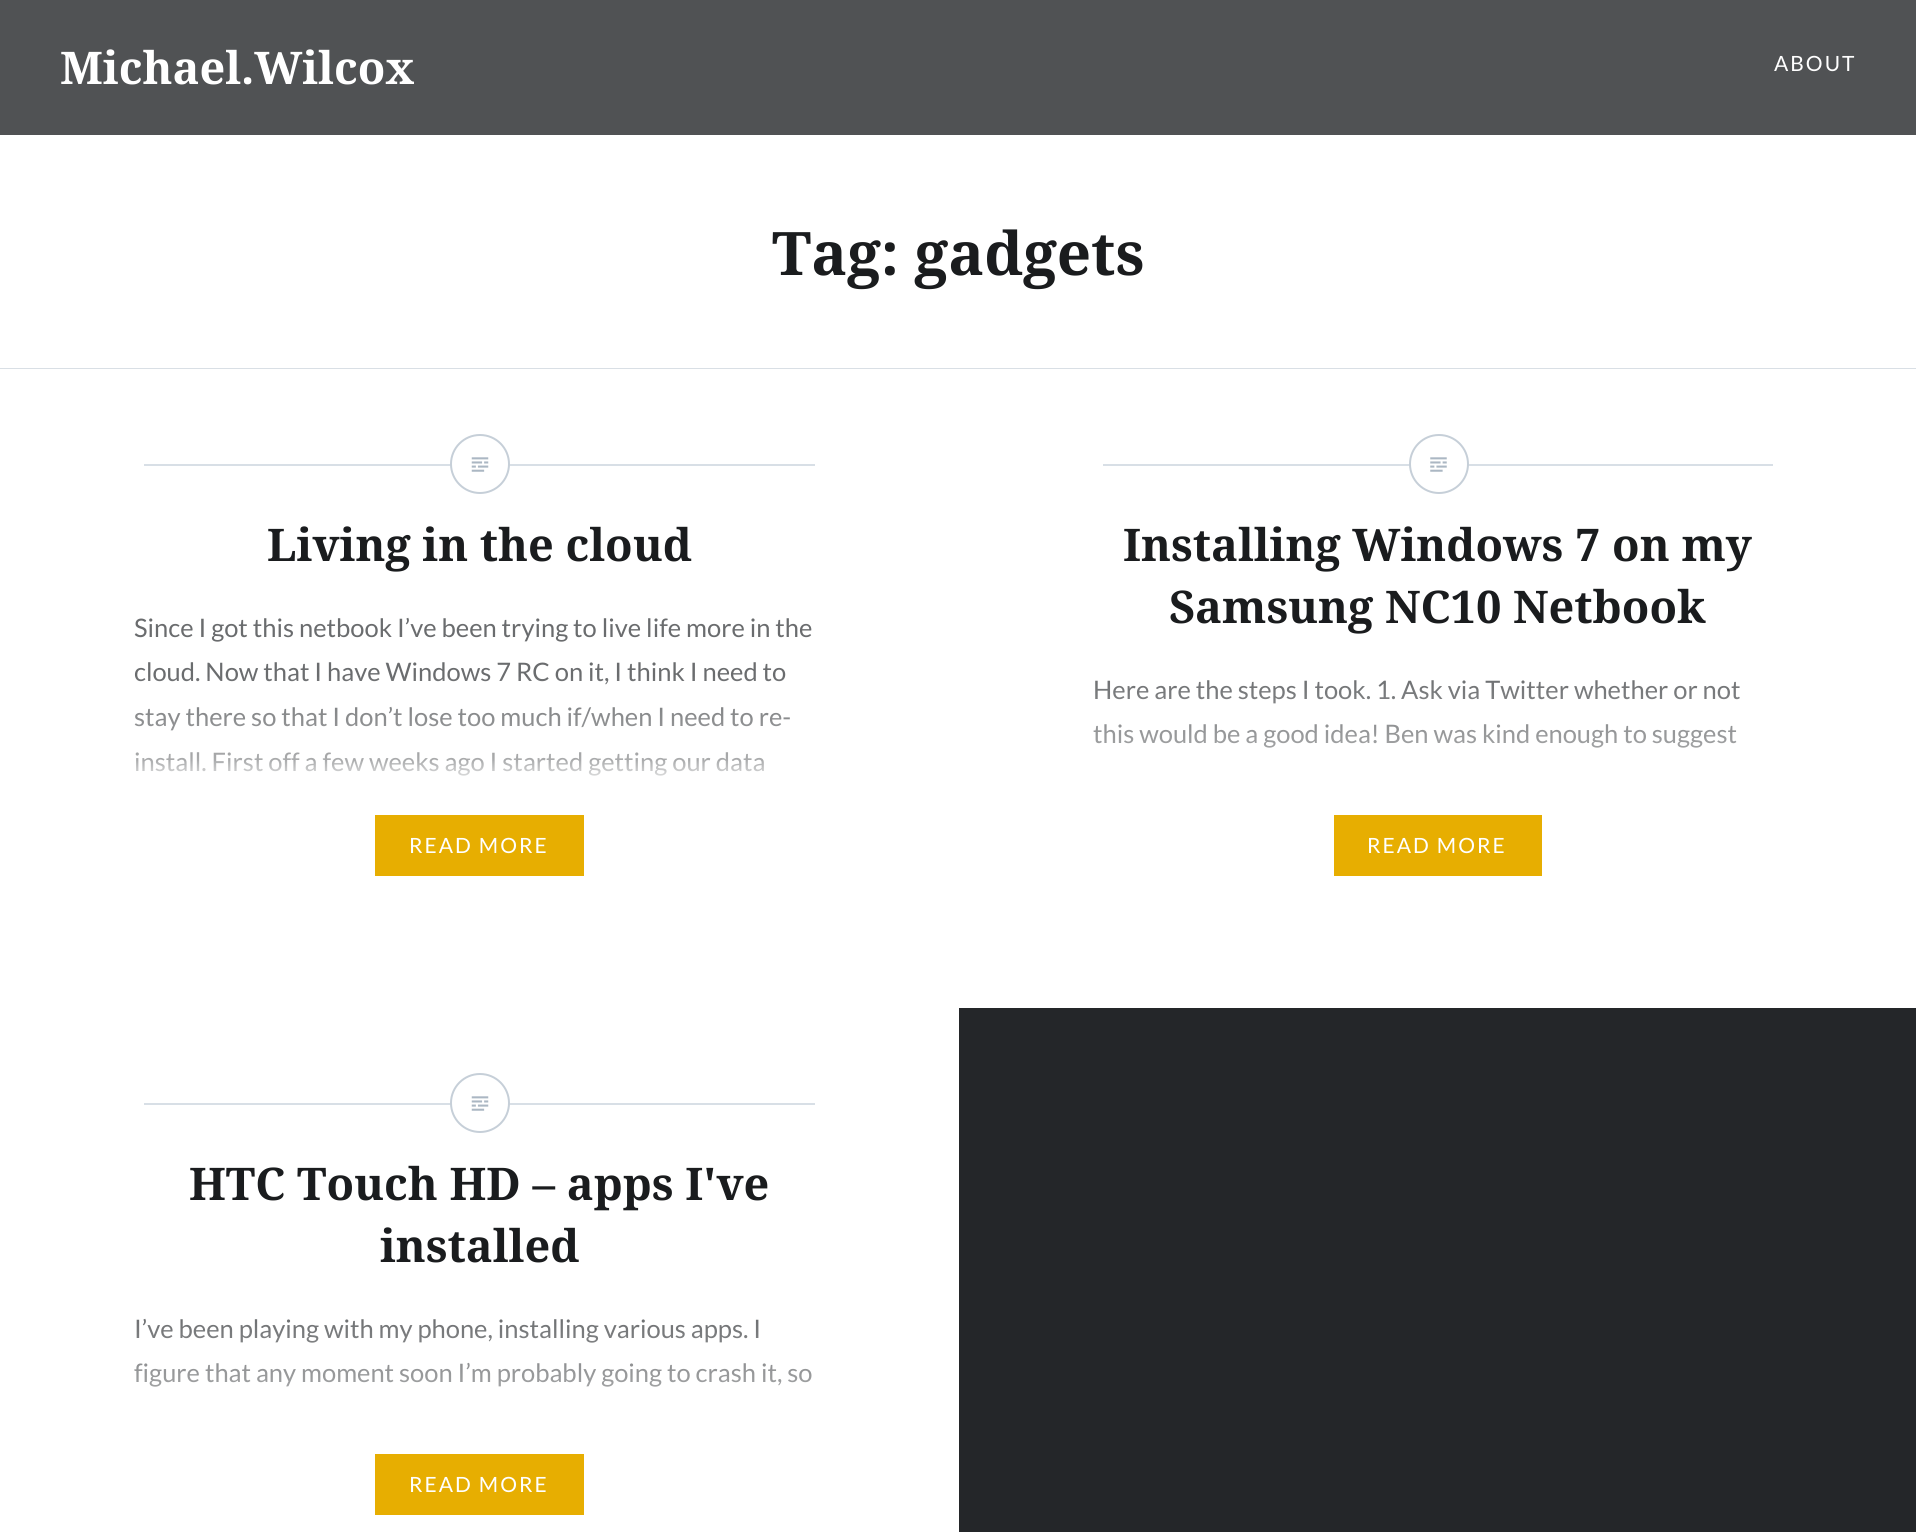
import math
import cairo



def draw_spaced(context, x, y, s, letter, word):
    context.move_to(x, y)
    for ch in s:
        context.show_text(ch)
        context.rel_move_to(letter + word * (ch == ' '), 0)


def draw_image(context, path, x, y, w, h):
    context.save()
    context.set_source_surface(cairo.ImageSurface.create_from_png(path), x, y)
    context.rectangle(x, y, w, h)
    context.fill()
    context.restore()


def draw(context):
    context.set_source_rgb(1, 1, 1)
    context.paint()
    context.set_source_rgb(80 / 255, 82 / 255, 84 / 255)
    context.rectangle(0, 0, 1916, 135)
    context.fill()
    context.set_source_rgb(36 / 255, 38 / 255, 41 / 255)
    context.rectangle(959, 1008, 957, 524)
    context.fill()
    context.set_source_rgb(217 / 255, 223 / 255, 229 / 255)
    context.rectangle(0, 368, 1916, 1)
    context.fill()
    context.set_source_rgb(216 / 255, 223 / 255, 230 / 255)
    context.rectangle(144, 464, 671, 2)
    context.fill()
    context.set_source_rgb(1, 1, 1)
    context.arc(480, 464, 29, 0, 2 * math.pi)
    context.fill_preserve()
    context.set_source_rgb(198 / 255, 207 / 255, 216 / 255)
    context.stroke()
    draw_image(context, "images/1.png", 471, 457, 18, 15)
    context.set_source_rgb(231 / 255, 174 / 255, 1 / 255)
    context.rectangle(375, 815, 209, 61)
    context.fill()
    context.set_source_rgb(216 / 255, 223 / 255, 230 / 255)
    context.rectangle(1103, 464, 670, 2)
    context.fill()
    context.set_source_rgb(1, 1, 1)
    context.arc(1439, 464, 29, 0, 2 * math.pi)
    context.fill_preserve()
    context.set_source_rgb(198 / 255, 207 / 255, 216 / 255)
    context.stroke()
    draw_image(context, "images/2.png", 1430, 457, 17, 15)
    context.set_source_rgb(231 / 255, 174 / 255, 1 / 255)
    context.rectangle(1334, 815, 208, 61)
    context.fill()
    context.set_source_rgb(216 / 255, 223 / 255, 230 / 255)
    context.rectangle(144, 1103, 671, 2)
    context.fill()
    context.set_source_rgb(1, 1, 1)
    context.arc(480, 1103, 29, 0, 2 * math.pi)
    context.fill_preserve()
    context.set_source_rgb(198 / 255, 207 / 255, 216 / 255)
    context.stroke()
    draw_image(context, "images/1.png", 471, 1096, 18, 15)
    context.set_source_rgb(231 / 255, 174 / 255, 1 / 255)
    context.rectangle(375, 1454, 209, 61)
    context.fill()
    context.select_font_face("Noto Serif", cairo.FontSlant.NORMAL, cairo.FontWeight.BOLD)
    context.set_font_size(45)
    context.set_source_rgb(1, 1, 1)
    context.move_to(60, 84)
    context.show_text("Michael.Wilcox")
    context.select_font_face("Lato")
    context.set_font_size(21)
    draw_spaced(context, 1774, 71, "ABOUT", 2, 0)
    context.select_font_face("Noto Serif", cairo.FontSlant.NORMAL, cairo.FontWeight.BOLD)
    context.set_font_size(60)
    context.set_source_rgb(26 / 255, 28 / 255, 30 / 255)
    context.move_to(772, 275)
    context.show_text("Tag: gadgets")
    context.set_font_size(45)
    context.move_to(267, 561)
    context.show_text("Living in the cloud")
    context.select_font_face("Lato")
    context.set_font_size(25.5)
    context.set_source_rgb(106 / 255, 108 / 255, 110 / 255)
    context.move_to(134, 637)
    context.show_text("Since I got this netbook I’ve been trying to live life more in the")
    context.move_to(134, 681)
    context.show_text("cloud. Now that I have Windows 7 RC on it, I think I need to")
    context.move_to(134, 726)
    context.show_text("stay there so that I don’t lose too much if/when I need to re-")
    context.move_to(134, 771)
    context.show_text("install. First off a few weeks ago I started getting our data")
    context.set_font_size(21)
    context.set_source_rgb(1, 1, 1)
    draw_spaced(context, 409, 853, "READ MORE", 2, 0)
    gradient = cairo.LinearGradient(479, 673, 479, 876)
    gradient.add_color_stop_rgba(0, 1, 1, 1, 0)
    gradient.add_color_stop_rgba(1, 1, 1, 1, 1)
    context.set_source(gradient)
    context.rectangle(135, 677, 656, 99)
    context.fill()
    gradient = cairo.LinearGradient(479, 760, 479, 794)
    gradient.add_color_stop_rgba(0, 1, 1, 1, 0)
    gradient.add_color_stop_rgba(1, 1, 1, 1, 1)
    context.set_source(gradient)
    context.rectangle(136, 761, 628, 15)
    context.fill()
    context.select_font_face("Noto Serif", cairo.FontSlant.NORMAL, cairo.FontWeight.BOLD)
    context.set_font_size(45)
    context.set_source_rgb(26 / 255, 28 / 255, 30 / 255)
    context.move_to(1123, 561)
    context.show_text("Installing Windows 7 on my")
    context.move_to(1169, 623)
    context.show_text("Samsung NC10 Netbook")
    context.select_font_face("Lato")
    context.set_font_size(25.5)
    context.set_source_rgb(106 / 255, 108 / 255, 110 / 255)
    context.move_to(1093, 699)
    context.show_text("Here are the steps I took. 1. Ask via Twitter whether or not")
    context.move_to(1093, 743)
    context.show_text("this would be a good idea! Ben was kind enough to suggest")
    context.set_font_size(21)
    context.set_source_rgb(1, 1, 1)
    draw_spaced(context, 1367, 853, "READ MORE", 2, 0)
    gradient = cairo.LinearGradient(1438, 673, 1438, 876)
    gradient.add_color_stop_rgba(0, 1, 1, 1, 0)
    gradient.add_color_stop_rgba(1, 1, 1, 1, 1)
    context.set_source(gradient)
    context.rectangle(1093, 680, 647, 68)
    context.fill()
    context.select_font_face("Noto Serif", cairo.FontSlant.NORMAL, cairo.FontWeight.BOLD)
    context.set_font_size(45)
    context.set_source_rgb(26 / 255, 28 / 255, 30 / 255)
    context.move_to(189, 1200)
    context.show_text("HTC Touch HD – apps I've")
    context.move_to(380, 1262)
    context.show_text("installed")
    context.select_font_face("Lato")
    context.set_font_size(25.5)
    context.set_source_rgb(106 / 255, 108 / 255, 110 / 255)
    context.move_to(134, 1338)
    context.show_text("I’ve been playing with my phone, installing various apps. I")
    context.move_to(134, 1382)
    context.show_text("figure that any moment soon I’m probably going to crash it, so")
    context.set_font_size(21)
    context.set_source_rgb(1, 1, 1)
    draw_spaced(context, 409, 1492, "READ MORE", 2, 0)
    gradient = cairo.LinearGradient(479, 1313, 479, 1515)
    gradient.add_color_stop_rgba(0, 1, 1, 1, 0)
    gradient.add_color_stop_rgba(1, 1, 1, 1, 1)
    context.set_source(gradient)
    context.rectangle(134, 1319, 678, 68)
    context.fill()


surface = cairo.ImageSurface(cairo.Format.RGB24, 1916, 1532)
context = cairo.Context(surface)
options = cairo.FontOptions()
options.set_hint_metrics(cairo.HintMetrics.OFF)
options.set_hint_style(cairo.HintStyle.NONE)
context.set_font_options(options)
context.set_miter_limit(4)
draw(context)
surface.write_to_png("out.png")
